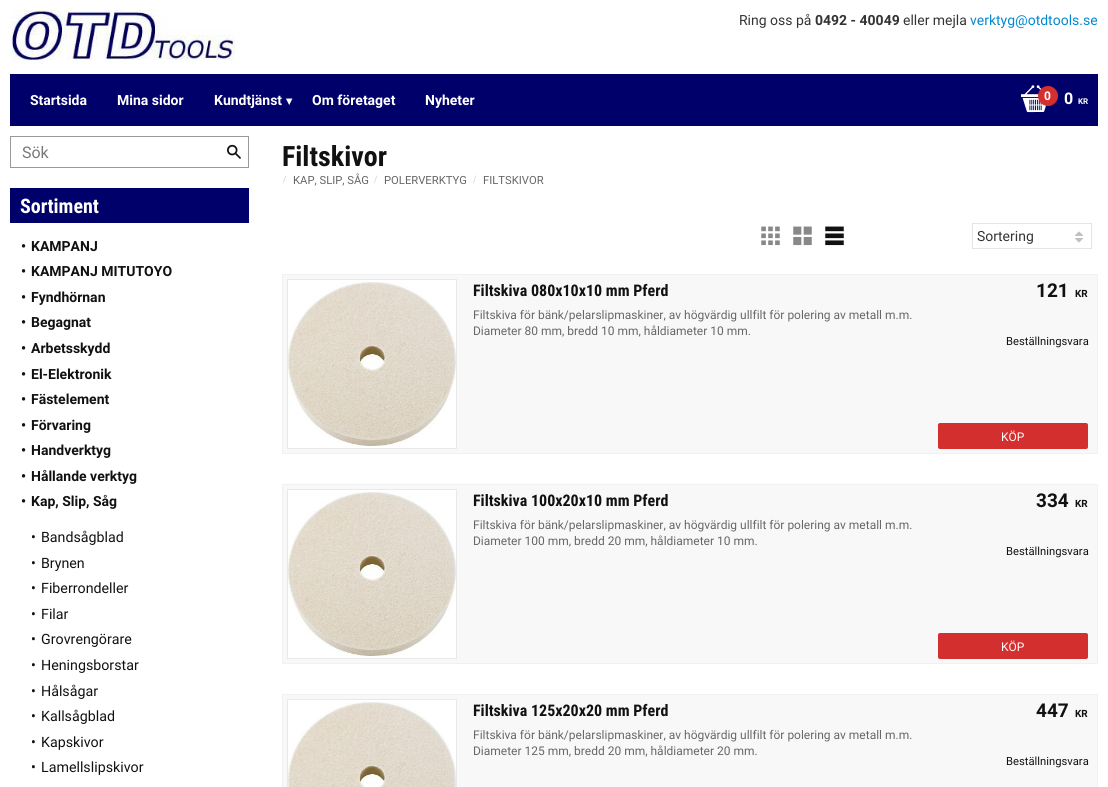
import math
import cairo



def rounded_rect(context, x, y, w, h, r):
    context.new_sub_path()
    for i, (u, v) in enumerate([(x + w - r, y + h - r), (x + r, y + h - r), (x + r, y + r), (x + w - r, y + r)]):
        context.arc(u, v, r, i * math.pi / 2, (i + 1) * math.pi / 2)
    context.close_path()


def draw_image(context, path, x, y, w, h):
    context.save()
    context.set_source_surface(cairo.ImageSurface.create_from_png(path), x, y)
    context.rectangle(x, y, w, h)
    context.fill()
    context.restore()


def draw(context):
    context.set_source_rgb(1, 1, 1)
    context.paint()
    draw_image(context, "images/1.png", 10, 10, 225, 54)
    context.set_source_rgb(0, 0, 107 / 255)
    context.rectangle(10, 74, 1088, 52)
    context.fill()
    draw_image(context, "images/2.png", 1021, 85, 26, 28)
    context.set_source_rgb(211 / 255, 47 / 255, 47 / 255)
    context.arc(1048, 96, 9.5, 0, 2 * math.pi)
    context.fill_preserve()
    context.set_line_width(1)
    context.stroke()
    context.rectangle(10.5, 136.5, 238, 31)
    context.set_source_rgb(153 / 255, 153 / 255, 153 / 255)
    context.stroke()
    draw_image(context, "images/3.png", 227, 144, 14, 15)
    context.set_source_rgb(0, 0, 107 / 255)
    context.rectangle(10, 188, 239, 35)
    context.fill()
    draw_image(context, "images/4.png", 761, 226, 19, 20)
    draw_image(context, "images/5.png", 793, 226, 19, 20)
    draw_image(context, "images/6.png", 825, 226, 19, 20)
    context.rectangle(972.5, 223.5, 119, 25)
    context.set_source_rgb(229 / 255, 229 / 255, 229 / 255)
    context.stroke()
    draw_image(context, "images/7.png", 1075, 231, 8, 12)
    context.set_source_rgb(248 / 255, 248 / 255, 248 / 255)
    context.rectangle(282.5, 274.5, 815, 179)
    context.fill_preserve()
    context.set_source_rgb(241 / 255, 241 / 255, 241 / 255)
    context.stroke()
    context.set_source_rgb(1, 1, 1)
    context.rectangle(287.5, 279.5, 169, 169)
    context.fill_preserve()
    context.set_source_rgb(233 / 255, 233 / 255, 233 / 255)
    context.stroke()
    draw_image(context, "images/8.png", 288, 282, 168, 164)
    context.set_source_rgb(211 / 255, 47 / 255, 47 / 255)
    rounded_rect(context, 938, 423, 150, 26, 2)
    context.fill()
    context.set_source_rgb(248 / 255, 248 / 255, 248 / 255)
    context.rectangle(282.5, 484.5, 815, 179)
    context.fill_preserve()
    context.set_source_rgb(241 / 255, 241 / 255, 241 / 255)
    context.stroke()
    context.set_source_rgb(1, 1, 1)
    context.rectangle(287.5, 489.5, 169, 169)
    context.fill_preserve()
    context.set_source_rgb(233 / 255, 233 / 255, 233 / 255)
    context.stroke()
    draw_image(context, "images/8.png", 288, 492, 168, 164)
    context.set_source_rgb(211 / 255, 47 / 255, 47 / 255)
    rounded_rect(context, 938, 633, 150, 26, 2)
    context.fill()
    context.set_source_rgb(248 / 255, 248 / 255, 248 / 255)
    context.rectangle(282.5, 694.5, 815, 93)
    context.fill_preserve()
    context.set_source_rgb(241 / 255, 241 / 255, 241 / 255)
    context.stroke()
    context.set_source_rgb(1, 1, 1)
    context.rectangle(288, 700, 168, 2)
    context.fill()
    context.rectangle(287.5, 699.5, 169, 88)
    context.set_source_rgb(233 / 255, 233 / 255, 233 / 255)
    context.stroke()
    draw_image(context, "images/9.png", 288, 702, 168, 85)
    context.select_font_face("Roboto")
    context.set_font_size(14)
    context.set_source_rgb(51 / 255, 51 / 255, 51 / 255)
    context.move_to(739, 25)
    context.show_text("Ring oss på")
    context.select_font_face("Roboto", cairo.FontSlant.NORMAL, cairo.FontWeight.BOLD)
    context.move_to(815, 25)
    context.show_text("0492 - 40049")
    context.select_font_face("Roboto")
    context.move_to(903, 25)
    context.show_text("eller mejla")
    context.set_source_rgb(2 / 255, 136 / 255, 209 / 255)
    context.move_to(970, 25)
    context.show_text("verktyg@otdtools.se")
    context.select_font_face("Roboto", cairo.FontSlant.NORMAL, cairo.FontWeight.BOLD)
    context.set_source_rgb(1, 1, 1)
    context.move_to(30, 105)
    context.show_text("Startsida")
    context.move_to(117, 105)
    context.show_text("Mina sidor")
    context.move_to(214, 105)
    context.show_text("Kundtjänst")
    context.select_font_face("DejaVu Sans", cairo.FontSlant.NORMAL, cairo.FontWeight.BOLD)
    context.set_font_size(12)
    context.move_to(286, 105)
    context.show_text("▾")
    context.select_font_face("Roboto", cairo.FontSlant.NORMAL, cairo.FontWeight.BOLD)
    context.set_font_size(14)
    context.move_to(312, 105)
    context.show_text("Om företaget")
    context.move_to(425, 105)
    context.show_text("Nyheter")
    context.set_font_size(12)
    context.move_to(1044, 100)
    context.show_text("0")
    context.set_font_size(16)
    context.move_to(1064, 104)
    context.show_text("0")
    context.set_font_size(8)
    context.move_to(1078, 104)
    context.show_text("KR")
    context.select_font_face("Roboto")
    context.set_font_size(16)
    context.set_source_rgb(120 / 255, 120 / 255, 120 / 255)
    context.move_to(22, 158)
    context.show_text("Sök")
    context.select_font_face("Roboto Condensed", cairo.FontSlant.NORMAL, cairo.FontWeight.BOLD)
    context.set_font_size(20)
    context.set_source_rgb(1, 1, 1)
    context.move_to(20, 213)
    context.show_text("Sortiment")
    context.select_font_face("Roboto", cairo.FontSlant.NORMAL, cairo.FontWeight.BOLD)
    context.set_font_size(14)
    context.set_source_rgb(17 / 255, 17 / 255, 17 / 255)
    context.move_to(21, 251)
    context.show_text("•")
    context.move_to(31, 251)
    context.show_text("KAMPANJ")
    context.move_to(21, 276)
    context.show_text("•")
    context.move_to(31, 276)
    context.show_text("KAMPANJ MITUTOYO")
    context.move_to(21, 302)
    context.show_text("•")
    context.move_to(31, 302)
    context.show_text("Fyndhörnan")
    context.move_to(21, 327)
    context.show_text("•")
    context.move_to(31, 327)
    context.show_text("Begagnat")
    context.move_to(21, 353)
    context.show_text("•")
    context.move_to(31, 353)
    context.show_text("Arbetsskydd")
    context.move_to(21, 379)
    context.show_text("•")
    context.move_to(31, 379)
    context.show_text("El-Elektronik")
    context.move_to(21, 404)
    context.show_text("•")
    context.move_to(31, 404)
    context.show_text("Fästelement")
    context.move_to(21, 430)
    context.show_text("•")
    context.move_to(31, 430)
    context.show_text("Förvaring")
    context.move_to(21, 455)
    context.show_text("•")
    context.move_to(31, 455)
    context.show_text("Handverktyg")
    context.move_to(21, 481)
    context.show_text("•")
    context.move_to(31, 481)
    context.show_text("Hållande verktyg")
    context.move_to(21, 506)
    context.show_text("•")
    context.move_to(31, 506)
    context.show_text("Kap, Slip, Såg")
    context.select_font_face("Roboto")
    context.set_font_size(14.25)
    context.move_to(31, 542)
    context.show_text("•")
    context.move_to(41, 542)
    context.show_text("Bandsågblad")
    context.move_to(31, 568)
    context.show_text("•")
    context.move_to(41, 568)
    context.show_text("Brynen")
    context.move_to(31, 593)
    context.show_text("•")
    context.move_to(41, 593)
    context.show_text("Fiberrondeller")
    context.move_to(31, 619)
    context.show_text("•")
    context.move_to(41, 619)
    context.show_text("Filar")
    context.move_to(31, 644)
    context.show_text("•")
    context.move_to(41, 644)
    context.show_text("Grovrengörare")
    context.move_to(31, 670)
    context.show_text("•")
    context.move_to(41, 670)
    context.show_text("Heningsborstar")
    context.move_to(31, 696)
    context.show_text("•")
    context.move_to(41, 696)
    context.show_text("Hålsågar")
    context.move_to(31, 721)
    context.show_text("•")
    context.move_to(41, 721)
    context.show_text("Kallsågblad")
    context.move_to(31, 747)
    context.show_text("•")
    context.move_to(41, 747)
    context.show_text("Kapskivor")
    context.move_to(31, 772)
    context.show_text("•")
    context.move_to(41, 772)
    context.show_text("Lamellslipskivor")
    context.select_font_face("Roboto Condensed", cairo.FontSlant.NORMAL, cairo.FontWeight.BOLD)
    context.set_font_size(28)
    context.move_to(282, 166)
    context.show_text("Filtskivor")
    context.select_font_face("Liberation Serif")
    context.set_font_size(11.25)
    context.set_source_rgb(195 / 255, 195 / 255, 195 / 255)
    context.move_to(283, 183)
    context.show_text("/")
    context.select_font_face("Roboto")
    context.set_source_rgb(102 / 255, 102 / 255, 102 / 255)
    context.move_to(293, 184)
    context.show_text("KAP, SLIP, SÅG")
    context.select_font_face("Liberation Serif")
    context.set_source_rgb(195 / 255, 195 / 255, 195 / 255)
    context.move_to(374, 183)
    context.show_text("/")
    context.select_font_face("Roboto")
    context.set_source_rgb(102 / 255, 102 / 255, 102 / 255)
    context.move_to(384, 184)
    context.show_text("POLERVERKTYG")
    context.select_font_face("Liberation Serif")
    context.set_source_rgb(195 / 255, 195 / 255, 195 / 255)
    context.move_to(473, 183)
    context.show_text("/")
    context.select_font_face("Roboto")
    context.set_source_rgb(102 / 255, 102 / 255, 102 / 255)
    context.move_to(483, 184)
    context.show_text("FILTSKIVOR")
    context.set_font_size(14)
    context.set_source_rgb(51 / 255, 51 / 255, 51 / 255)
    context.move_to(977, 241)
    context.show_text("Sortering")
    context.select_font_face("Roboto Condensed", cairo.FontSlant.NORMAL, cairo.FontWeight.BOLD)
    context.set_font_size(16)
    context.set_source_rgb(17 / 255, 17 / 255, 17 / 255)
    context.move_to(473, 296)
    context.show_text("Filtskiva 080x10x10 mm Pferd")
    context.select_font_face("Roboto")
    context.set_font_size(12)
    context.set_source_rgb(102 / 255, 102 / 255, 102 / 255)
    context.move_to(473, 319)
    context.show_text("Filtskiva för bänk/pelarslipmaskiner, av högvärdig ullfilt för polering av metall m.m.")
    context.move_to(473, 335)
    context.show_text("Diameter 80 mm, bredd 10 mm, håldiameter 10 mm.")
    context.select_font_face("Roboto", cairo.FontSlant.NORMAL, cairo.FontWeight.BOLD)
    context.set_font_size(19)
    context.set_source_rgb(17 / 255, 17 / 255, 17 / 255)
    context.move_to(1036, 297)
    context.show_text("121")
    context.set_font_size(10)
    context.move_to(1075, 297)
    context.show_text("KR")
    context.select_font_face("Roboto")
    context.set_font_size(11.25)
    context.move_to(1006, 345)
    context.show_text("Beställningsvara")
    context.set_font_size(12)
    context.set_source_rgb(1, 1, 1)
    context.move_to(1001, 441)
    context.show_text("KÖP")
    context.select_font_face("Roboto Condensed", cairo.FontSlant.NORMAL, cairo.FontWeight.BOLD)
    context.set_font_size(16)
    context.set_source_rgb(17 / 255, 17 / 255, 17 / 255)
    context.move_to(473, 506)
    context.show_text("Filtskiva 100x20x10 mm Pferd")
    context.select_font_face("Roboto")
    context.set_font_size(12)
    context.set_source_rgb(102 / 255, 102 / 255, 102 / 255)
    context.move_to(473, 529)
    context.show_text("Filtskiva för bänk/pelarslipmaskiner, av högvärdig ullfilt för polering av metall m.m.")
    context.move_to(473, 545)
    context.show_text("Diameter 100 mm, bredd 20 mm, håldiameter 10 mm.")
    context.select_font_face("Roboto", cairo.FontSlant.NORMAL, cairo.FontWeight.BOLD)
    context.set_font_size(19)
    context.set_source_rgb(17 / 255, 17 / 255, 17 / 255)
    context.move_to(1036, 507)
    context.show_text("334")
    context.set_font_size(10)
    context.move_to(1075, 507)
    context.show_text("KR")
    context.select_font_face("Roboto")
    context.set_font_size(11.25)
    context.move_to(1006, 555)
    context.show_text("Beställningsvara")
    context.set_font_size(12)
    context.set_source_rgb(1, 1, 1)
    context.move_to(1001, 651)
    context.show_text("KÖP")
    context.select_font_face("Roboto Condensed", cairo.FontSlant.NORMAL, cairo.FontWeight.BOLD)
    context.set_font_size(16)
    context.set_source_rgb(17 / 255, 17 / 255, 17 / 255)
    context.move_to(473, 716)
    context.show_text("Filtskiva 125x20x20 mm Pferd")
    context.select_font_face("Roboto")
    context.set_font_size(12)
    context.set_source_rgb(102 / 255, 102 / 255, 102 / 255)
    context.move_to(473, 739)
    context.show_text("Filtskiva för bänk/pelarslipmaskiner, av högvärdig ullfilt för polering av metall m.m.")
    context.move_to(473, 755)
    context.show_text("Diameter 125 mm, bredd 20 mm, håldiameter 20 mm.")
    context.select_font_face("Roboto", cairo.FontSlant.NORMAL, cairo.FontWeight.BOLD)
    context.set_font_size(19)
    context.set_source_rgb(17 / 255, 17 / 255, 17 / 255)
    context.move_to(1036, 717)
    context.show_text("447")
    context.set_font_size(10)
    context.move_to(1075, 717)
    context.show_text("KR")
    context.select_font_face("Roboto")
    context.set_font_size(11.25)
    context.move_to(1006, 765)
    context.show_text("Beställningsvara")


surface = cairo.ImageSurface(cairo.Format.RGB24, 1108, 787)
context = cairo.Context(surface)
options = cairo.FontOptions()
options.set_hint_metrics(cairo.HintMetrics.OFF)
options.set_hint_style(cairo.HintStyle.NONE)
context.set_font_options(options)
context.set_miter_limit(4)
draw(context)
surface.write_to_png("out.png")
